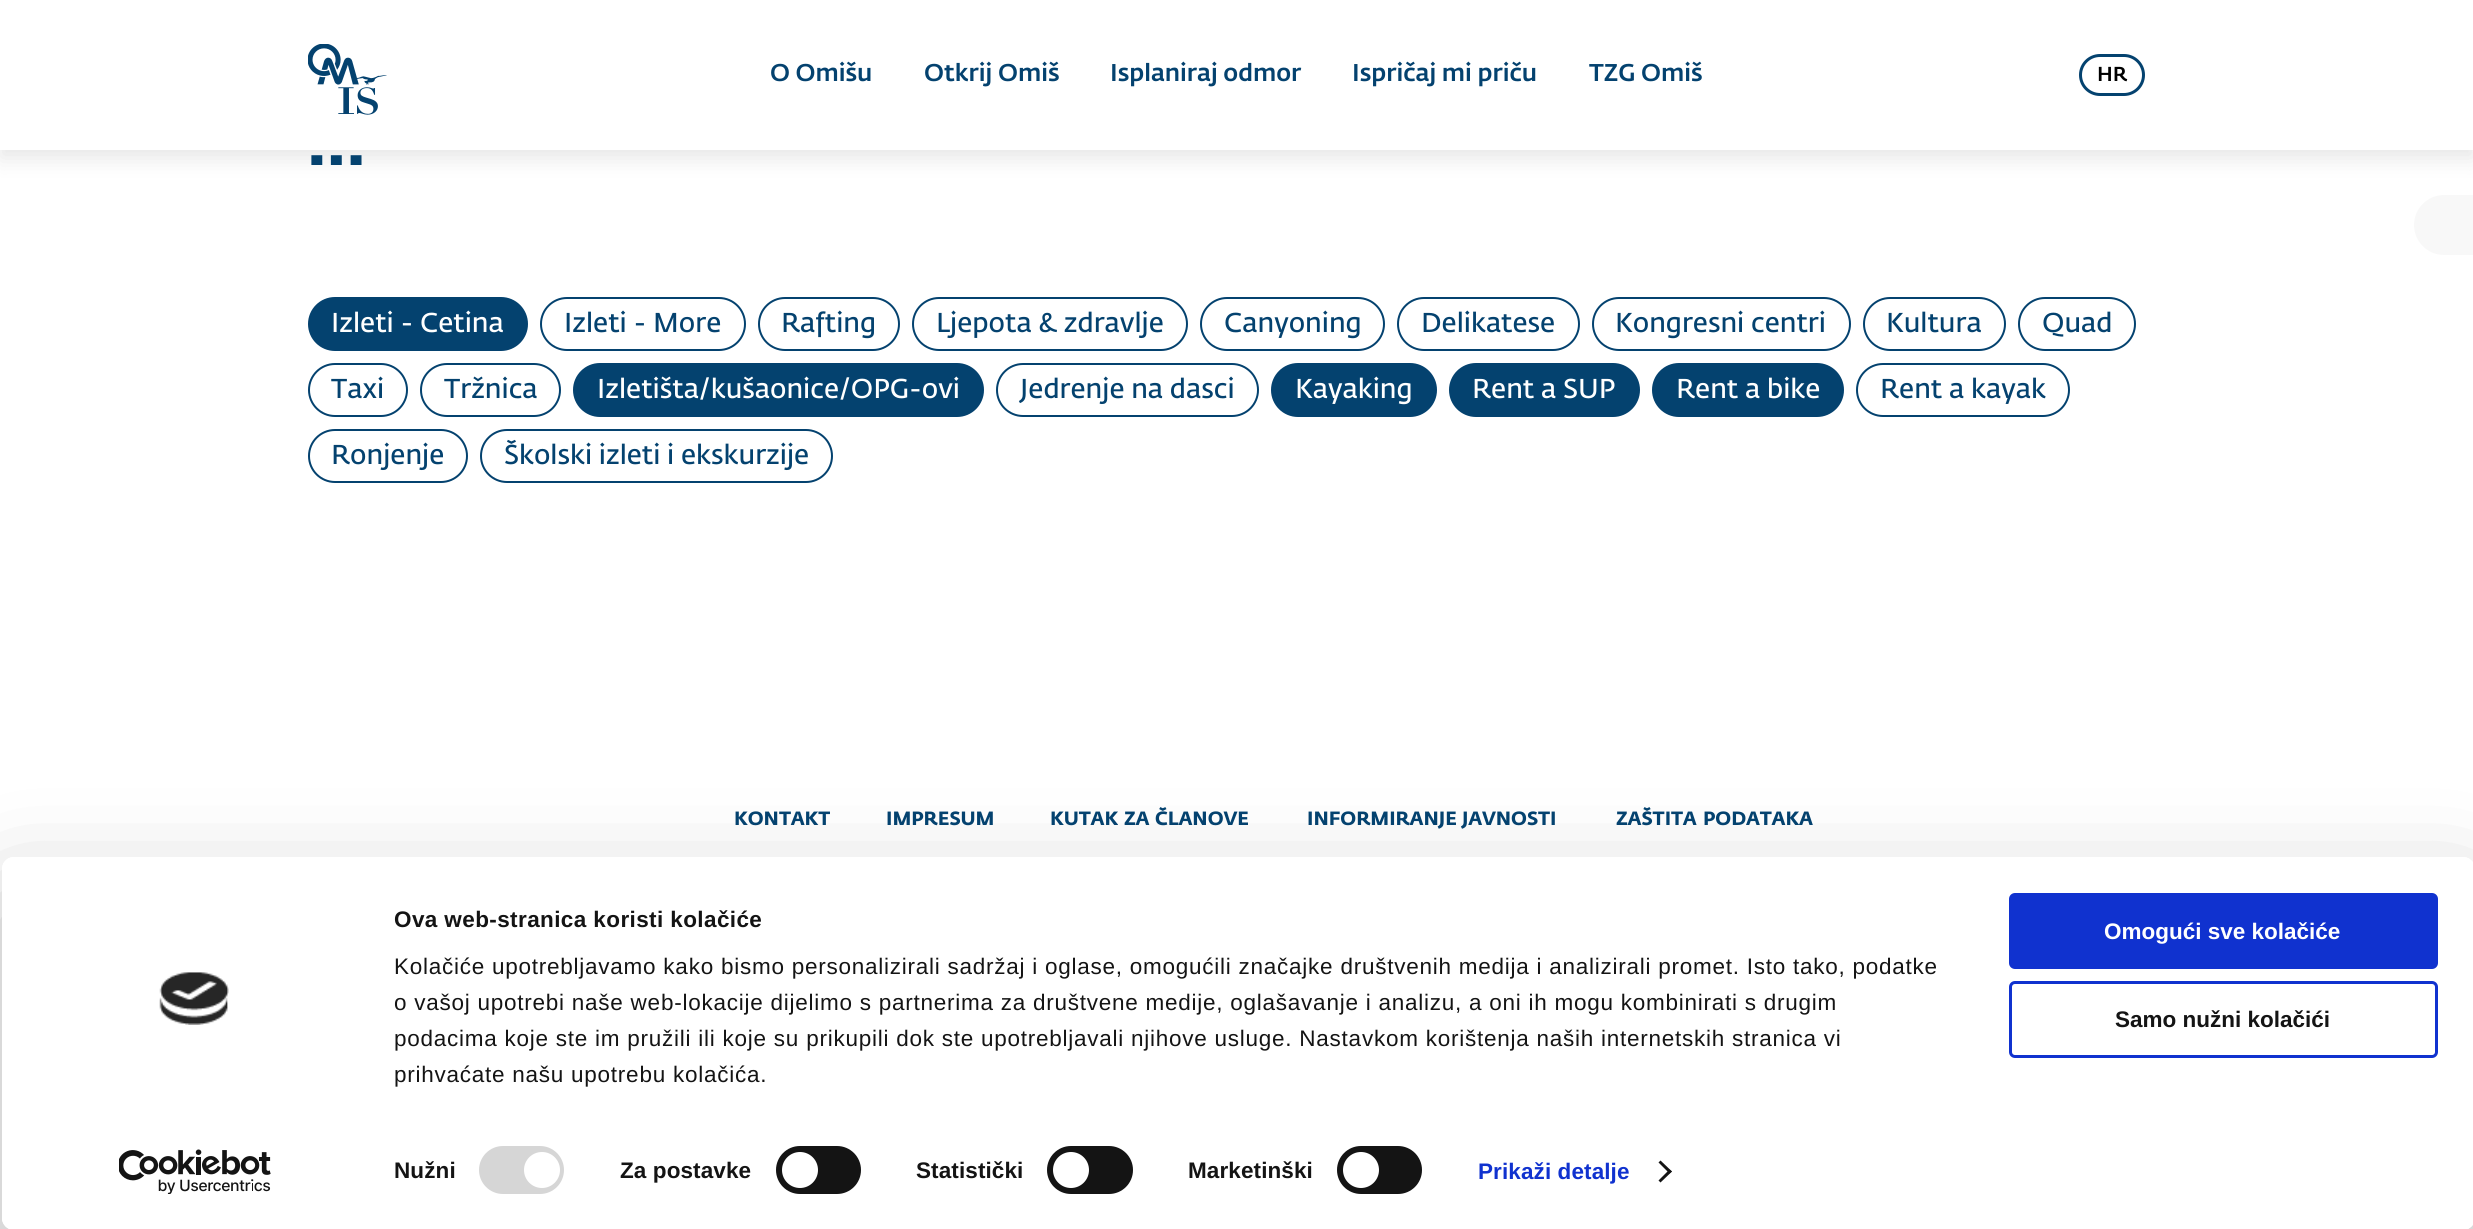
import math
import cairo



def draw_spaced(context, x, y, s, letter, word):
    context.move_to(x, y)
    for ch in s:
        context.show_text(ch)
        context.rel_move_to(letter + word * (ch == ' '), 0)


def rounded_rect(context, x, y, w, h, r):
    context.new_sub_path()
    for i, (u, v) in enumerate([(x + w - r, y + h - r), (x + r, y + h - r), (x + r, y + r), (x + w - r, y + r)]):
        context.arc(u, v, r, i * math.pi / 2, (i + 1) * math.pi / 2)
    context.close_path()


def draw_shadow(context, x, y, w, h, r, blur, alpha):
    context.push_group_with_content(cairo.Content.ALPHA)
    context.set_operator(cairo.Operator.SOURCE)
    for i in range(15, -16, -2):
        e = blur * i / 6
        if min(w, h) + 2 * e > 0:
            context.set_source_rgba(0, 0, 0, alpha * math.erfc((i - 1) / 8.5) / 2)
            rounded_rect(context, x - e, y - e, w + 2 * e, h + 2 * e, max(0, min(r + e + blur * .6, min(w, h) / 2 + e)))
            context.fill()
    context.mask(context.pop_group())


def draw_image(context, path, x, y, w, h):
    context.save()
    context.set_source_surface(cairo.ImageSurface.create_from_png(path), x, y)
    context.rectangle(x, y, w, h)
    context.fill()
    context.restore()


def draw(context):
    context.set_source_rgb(1, 1, 1)
    context.paint()
    context.set_source_rgb(0, 0, 0)
    draw_shadow(context, 0, 8, 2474, 150, 0, 11, 0.1)
    context.set_source_rgb(1, 1, 1)
    context.rectangle(0, 0, 2473, 150)
    context.fill()
    draw_image(context, "images/1.png", 308, 44, 79, 71)
    rounded_rect(context, 2080.5, 55.5, 63, 39, 19.5)
    context.set_source_rgb(4 / 255, 66 / 255, 111 / 255)
    context.set_line_width(3)
    context.stroke()
    rounded_rect(context, 309, 298, 218, 52, 26)
    context.fill_preserve()
    context.set_line_width(2)
    context.stroke()
    rounded_rect(context, 541, 298, 204, 52, 26)
    context.stroke()
    rounded_rect(context, 759, 298, 140, 52, 26)
    context.stroke()
    rounded_rect(context, 913, 298, 274, 52, 26)
    context.stroke()
    rounded_rect(context, 1201, 298, 183, 52, 26)
    context.stroke()
    rounded_rect(context, 1398, 298, 181, 52, 26)
    context.stroke()
    rounded_rect(context, 1593, 298, 257, 52, 26)
    context.stroke()
    rounded_rect(context, 1864, 298, 141, 52, 26)
    context.stroke()
    rounded_rect(context, 2019, 298, 116, 52, 26)
    context.stroke()
    rounded_rect(context, 309, 364, 98, 52, 26)
    context.stroke()
    rounded_rect(context, 421, 364, 139, 52, 26)
    context.stroke()
    rounded_rect(context, 574, 364, 409, 52, 26)
    context.fill_preserve()
    context.stroke()
    rounded_rect(context, 997, 364, 261, 52, 26)
    context.stroke()
    rounded_rect(context, 1272, 364, 164, 52, 26)
    context.fill_preserve()
    context.stroke()
    rounded_rect(context, 1450, 364, 189, 52, 26)
    context.fill_preserve()
    context.stroke()
    rounded_rect(context, 1653, 364, 190, 52, 26)
    context.fill_preserve()
    context.stroke()
    rounded_rect(context, 1857, 364, 212, 52, 26)
    context.stroke()
    rounded_rect(context, 309, 430, 158, 52, 26)
    context.stroke()
    rounded_rect(context, 481, 430, 351, 52, 26)
    context.stroke()
    context.set_source_rgb(248 / 255, 248 / 255, 248 / 255)
    context.new_path()
    context.move_to(2444, 195)
    context.line_to(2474, 195)
    context.line_to(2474, 255)
    context.line_to(2444, 255)
    context.curve_to(2427.5, 255, 2414, 241.5, 2414, 225)
    context.curve_to(2414, 208.5, 2427.5, 195, 2444, 195)
    context.close_path()
    context.fill()
    context.save()
    context.set_fill_rule(cairo.FillRule.EVEN_ODD)
    context.new_path()
    context.move_to(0, 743)
    context.line_to(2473, 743)
    context.line_to(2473, 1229)
    context.line_to(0, 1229)
    context.close_path()
    context.move_to(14, 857)
    context.line_to(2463, 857)
    context.curve_to(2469.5, 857, 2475, 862.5, 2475, 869)
    context.line_to(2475, 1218)
    context.curve_to(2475, 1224.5, 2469.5, 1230, 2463, 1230)
    context.line_to(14, 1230)
    context.curve_to(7.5, 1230, 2, 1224.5, 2, 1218)
    context.line_to(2, 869)
    context.curve_to(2, 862.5, 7.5, 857, 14, 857)
    context.close_path()
    context.clip()
    context.set_source_rgb(0, 0, 0)
    draw_shadow(context, 2, 902, 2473, 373, 12, 52.5, 0.3)
    context.restore()
    context.set_source_rgb(1, 1, 1)
    rounded_rect(context, 2, 857, 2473, 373, 12)
    context.fill()
    draw_image(context, "images/2.png", 159, 972, 70, 53)
    draw_image(context, "images/3.png", 119, 1149, 152, 45)
    context.set_source_rgb(214 / 255, 214 / 255, 214 / 255)
    rounded_rect(context, 479, 1146, 85, 48, 24)
    context.fill()
    context.set_source_rgb(1, 1, 1)
    context.arc(542, 1170, 18, 0, 2 * math.pi)
    context.fill()
    context.set_source_rgb(20 / 255, 20 / 255, 20 / 255)
    rounded_rect(context, 776, 1146, 85, 48, 24)
    context.fill()
    context.set_source_rgb(1, 1, 1)
    context.arc(800, 1170, 18, 0, 2 * math.pi)
    context.fill()
    context.set_source_rgb(20 / 255, 20 / 255, 20 / 255)
    rounded_rect(context, 1047, 1146, 86, 48, 24)
    context.fill()
    context.set_source_rgb(1, 1, 1)
    context.arc(1071, 1170, 18, 0, 2 * math.pi)
    context.fill()
    context.set_source_rgb(20 / 255, 20 / 255, 20 / 255)
    rounded_rect(context, 1337, 1146, 85, 48, 24)
    context.fill()
    context.set_source_rgb(1, 1, 1)
    context.arc(1361, 1170, 18, 0, 2 * math.pi)
    context.fill()
    context.set_source_rgb(20 / 255, 20 / 255, 20 / 255)
    context.new_path()
    context.move_to(1660.5, 1160.5)
    context.line_to(1672, 1171.5)
    context.line_to(1669.5, 1173.5)
    context.line_to(1658.5, 1162.5)
    context.close_path()
    context.fill()
    context.new_path()
    context.move_to(1669.5, 1169.5)
    context.line_to(1672, 1171.5)
    context.line_to(1660.5, 1182.5)
    context.line_to(1658.5, 1180.5)
    context.close_path()
    context.fill()
    context.set_source_rgb(16 / 255, 50 / 255, 207 / 255)
    rounded_rect(context, 2010.5, 894.5, 426, 73, 4.5)
    context.fill_preserve()
    context.set_line_width(3)
    context.stroke()
    rounded_rect(context, 2010.5, 982.5, 426, 74, 4.5)
    context.stroke()
    context.select_font_face("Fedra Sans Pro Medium")
    context.set_font_size(24)
    context.set_source_rgb(4 / 255, 66 / 255, 111 / 255)
    context.move_to(770, 81)
    context.show_text("O Omišu")
    context.move_to(924, 81)
    context.show_text("Otkrij Omiš")
    context.move_to(1110, 81)
    context.show_text("Isplaniraj odmor")
    context.move_to(1352, 81)
    context.show_text("Ispričaj mi priču")
    context.move_to(1589, 81)
    context.show_text("TZG Omiš")
    context.set_font_size(20)
    context.set_source_rgb(0, 0, 0)
    context.move_to(2097, 81)
    context.show_text("HR")
    context.set_font_size(72)
    context.set_source_rgb(4 / 255, 66 / 255, 111 / 255)
    context.move_to(307, 165)
    context.show_text("...")
    context.select_font_face("Fedra Sans Pro")
    context.set_font_size(27)
    context.set_source_rgb(1, 1, 1)
    context.move_to(331, 332)
    context.show_text("Izleti - Cetina")
    context.set_source_rgb(4 / 255, 66 / 255, 111 / 255)
    context.move_to(564, 332)
    context.show_text("Izleti - More")
    context.move_to(781, 332)
    context.show_text("Rafting")
    context.move_to(936, 332)
    context.show_text("Ljepota & zdravlje")
    context.move_to(1224, 332)
    context.show_text("Canyoning")
    context.move_to(1421, 332)
    context.show_text("Delikatese")
    context.move_to(1615, 332)
    context.show_text("Kongresni centri")
    context.move_to(1886, 332)
    context.show_text("Kultura")
    context.move_to(2042, 332)
    context.show_text("Quad")
    context.move_to(331, 398)
    context.show_text("Taxi")
    context.move_to(444, 398)
    context.show_text("Tržnica")
    context.set_source_rgb(1, 1, 1)
    context.move_to(597, 398)
    context.show_text("Izletišta/kušaonice/OPG-ovi")
    context.set_source_rgb(4 / 255, 66 / 255, 111 / 255)
    context.move_to(1020, 398)
    context.show_text("Jedrenje na dasci")
    context.set_source_rgb(1, 1, 1)
    context.move_to(1295, 398)
    context.show_text("Kayaking")
    context.move_to(1472, 398)
    context.show_text("Rent a SUP")
    context.move_to(1676, 398)
    context.show_text("Rent a bike")
    context.set_source_rgb(4 / 255, 66 / 255, 111 / 255)
    context.move_to(1880, 398)
    context.show_text("Rent a kayak")
    context.move_to(331, 464)
    context.show_text("Ronjenje")
    context.move_to(504, 464)
    context.show_text("Školski izleti i ekskurzije")
    context.select_font_face("Fedra Sans Pro", cairo.FontSlant.NORMAL, cairo.FontWeight.BOLD)
    context.set_font_size(19)
    context.move_to(734, 825)
    context.show_text("KONTAKT")
    context.move_to(886, 825)
    context.show_text("IMPRESUM")
    context.move_to(1050, 825)
    context.show_text("KUTAK")
    context.move_to(1124, 825)
    context.show_text("ZA")
    context.move_to(1155, 825)
    context.show_text("ČLANOVE")
    context.move_to(1307, 825)
    context.show_text("INFORMIRANJE")
    context.move_to(1462, 825)
    context.show_text("JAVNOSTI")
    context.move_to(1616, 825)
    context.show_text("ZAŠTITA")
    context.move_to(1703, 825)
    context.show_text("PODATAKA")
    context.select_font_face("Liberation Sans", cairo.FontSlant.NORMAL, cairo.FontWeight.BOLD)
    context.set_font_size(22.5)
    context.set_source_rgb(20 / 255, 20 / 255, 20 / 255)
    draw_spaced(context, 394, 927, "Ova web-stranica koristi kolačiće", 0.4, 0)
    context.select_font_face("Liberation Sans")
    draw_spaced(context, 394, 974, "Kolačiće upotrebljavamo kako bismo personalizirali sadržaj i oglase, omogućili značajke društvenih medija i analizirali promet. Isto tako, podatke", 0.75, 0)
    draw_spaced(context, 394, 1010, "o vašoj upotrebi naše web-lokacije dijelimo s partnerima za društvene medije, oglašavanje i analizu, a oni ih mogu kombinirati s drugim", 0.75, 0)
    draw_spaced(context, 394, 1046, "podacima koje ste im pružili ili koje su prikupili dok ste upotrebljavali njihove usluge. Nastavkom korištenja naših internetskih stranica vi", 0.75, 0)
    draw_spaced(context, 394, 1082, "prihvaćate našu upotrebu kolačića.", 0.75, 0)
    context.select_font_face("Liberation Sans", cairo.FontSlant.NORMAL, cairo.FontWeight.BOLD)
    draw_spaced(context, 394, 1178, "Nužni", 0.1, 0)
    draw_spaced(context, 620, 1178, "Za postavke", 0.1, 0)
    draw_spaced(context, 916, 1178, "Statistički", 0.1, 0)
    draw_spaced(context, 1188, 1178, "Marketinški", 0.1, 0)
    context.set_source_rgb(16 / 255, 50 / 255, 207 / 255)
    draw_spaced(context, 1478, 1179, "Prikaži detalje", 0.1, 0)
    context.set_source_rgb(1, 1, 1)
    context.move_to(2104, 939)
    context.show_text("Omogući sve kolačiće")
    context.set_source_rgb(20 / 255, 20 / 255, 20 / 255)
    context.move_to(2115, 1027)
    context.show_text("Samo nužni kolačići")


surface = cairo.ImageSurface(cairo.Format.RGB24, 2473, 1229)
context = cairo.Context(surface)
options = cairo.FontOptions()
options.set_hint_metrics(cairo.HintMetrics.OFF)
options.set_hint_style(cairo.HintStyle.NONE)
context.set_font_options(options)
context.set_miter_limit(4)
draw(context)
surface.write_to_png("out.png")
